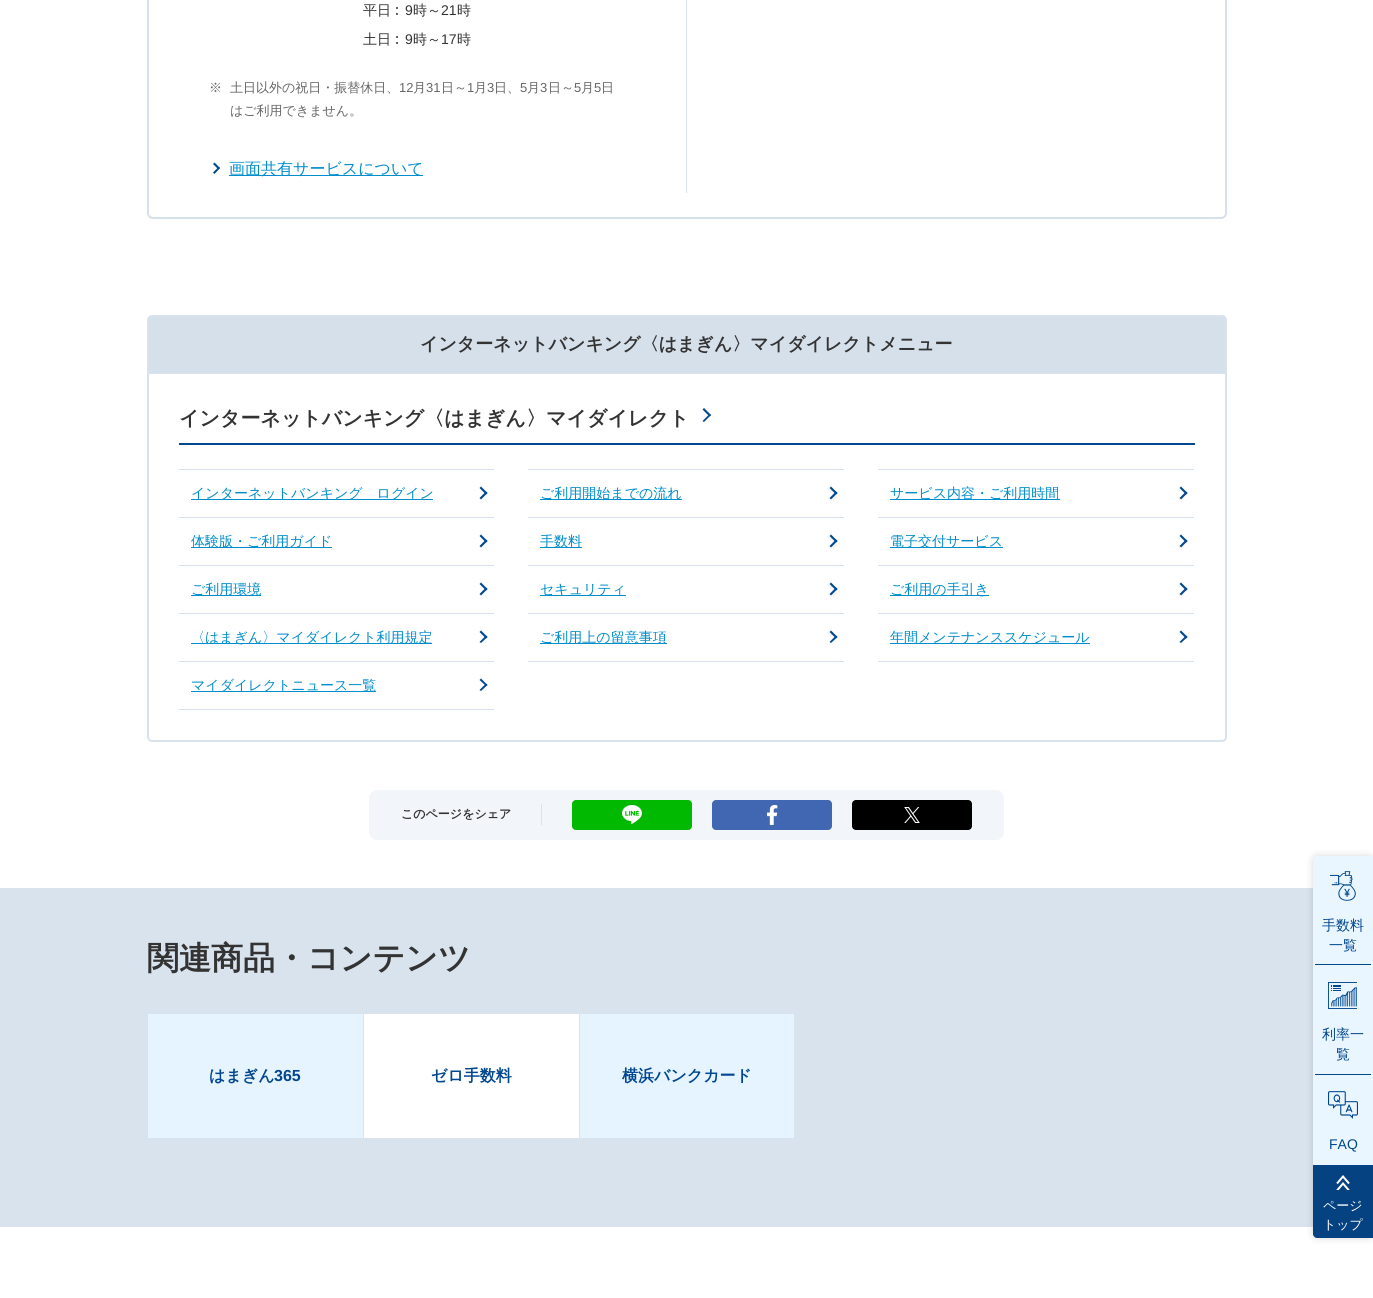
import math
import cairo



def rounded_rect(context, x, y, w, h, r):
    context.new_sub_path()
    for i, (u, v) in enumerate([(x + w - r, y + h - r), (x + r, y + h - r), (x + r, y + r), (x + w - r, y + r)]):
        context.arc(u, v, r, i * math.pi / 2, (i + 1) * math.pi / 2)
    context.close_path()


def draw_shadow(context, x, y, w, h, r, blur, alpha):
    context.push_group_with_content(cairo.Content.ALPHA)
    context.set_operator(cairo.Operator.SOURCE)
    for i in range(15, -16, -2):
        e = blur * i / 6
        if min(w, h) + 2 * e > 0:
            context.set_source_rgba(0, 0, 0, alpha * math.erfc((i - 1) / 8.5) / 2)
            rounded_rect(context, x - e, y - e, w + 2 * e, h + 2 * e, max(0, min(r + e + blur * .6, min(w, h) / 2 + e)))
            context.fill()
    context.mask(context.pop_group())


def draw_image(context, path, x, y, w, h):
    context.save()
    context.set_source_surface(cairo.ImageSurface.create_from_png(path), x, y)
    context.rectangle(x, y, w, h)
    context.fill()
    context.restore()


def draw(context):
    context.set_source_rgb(1, 1, 1)
    context.paint()
    rounded_rect(context, 148, -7, 1078, 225, 5)
    context.set_source_rgb(213 / 255, 224 / 255, 235 / 255)
    context.stroke()
    context.set_source_rgb(217 / 255, 227 / 255, 238 / 255)
    context.rectangle(686, 0, 1, 193)
    context.fill()
    context.set_source_rgb(51 / 255, 51 / 255, 51 / 255)
    context.arc(397, 8, 1, 0, 2 * math.pi)
    context.fill()
    context.arc(397, 14, 1, 0, 2 * math.pi)
    context.fill()
    context.arc(397, 37, 1, 0, 2 * math.pi)
    context.fill()
    context.arc(397, 43, 1, 0, 2 * math.pi)
    context.fill()
    context.set_source_rgb(1 / 255, 71 / 255, 143 / 255)
    context.new_path()
    context.move_to(214.5, 162.5)
    context.line_to(220, 168)
    context.line_to(218.5, 169.5)
    context.line_to(213, 164)
    context.close_path()
    context.fill()
    context.new_path()
    context.move_to(218.5, 167)
    context.line_to(220, 168)
    context.line_to(214.5, 174)
    context.line_to(213, 172.5)
    context.close_path()
    context.fill()
    context.set_source_rgb(0, 141 / 255, 203 / 255)
    context.rectangle(229, 175, 194, 1)
    context.fill()
    rounded_rect(context, 148, 316, 1078, 425, 4)
    context.set_source_rgb(217 / 255, 227 / 255, 238 / 255)
    context.stroke()
    context.set_source_rgb(213 / 255, 224 / 255, 235 / 255)
    context.rectangle(149, 317, 1076, 56)
    context.fill()
    context.set_source_rgb(217 / 255, 227 / 255, 238 / 255)
    context.rectangle(149, 373, 1076, 1)
    context.fill()
    context.set_source_rgb(1 / 255, 71 / 255, 143 / 255)
    context.rectangle(179, 443, 1016, 2)
    context.fill()
    context.new_path()
    context.move_to(704, 408)
    context.line_to(711, 415)
    context.line_to(709.5, 416.5)
    context.line_to(702.5, 409.5)
    context.close_path()
    context.fill()
    context.new_path()
    context.move_to(709.5, 414)
    context.line_to(711, 415)
    context.line_to(704, 422)
    context.line_to(702.5, 421)
    context.close_path()
    context.fill()
    context.set_source_rgb(213 / 255, 224 / 255, 235 / 255)
    context.rectangle(179, 469, 315, 1)
    context.fill()
    context.rectangle(179, 517, 315, 1)
    context.fill()
    context.set_source_rgb(0, 141 / 255, 203 / 255)
    context.rectangle(191, 499, 242, 1)
    context.fill()
    context.set_source_rgb(1 / 255, 71 / 255, 143 / 255)
    context.new_path()
    context.move_to(481, 486.5)
    context.line_to(487.5, 493)
    context.line_to(486, 494.5)
    context.line_to(479.5, 488)
    context.close_path()
    context.fill()
    context.new_path()
    context.move_to(486, 491.5)
    context.line_to(487.5, 493)
    context.line_to(481, 499.5)
    context.line_to(479.5, 498)
    context.close_path()
    context.fill()
    context.set_source_rgb(213 / 255, 224 / 255, 235 / 255)
    context.rectangle(528, 469, 316, 1)
    context.fill()
    context.rectangle(528, 517, 316, 1)
    context.fill()
    context.set_source_rgb(0, 141 / 255, 203 / 255)
    context.rectangle(540, 499, 142, 1)
    context.fill()
    context.set_source_rgb(1 / 255, 71 / 255, 143 / 255)
    context.new_path()
    context.move_to(831, 486.5)
    context.line_to(837.5, 493)
    context.line_to(836, 494.5)
    context.line_to(829.5, 488)
    context.close_path()
    context.fill()
    context.new_path()
    context.move_to(836, 491.5)
    context.line_to(837.5, 493)
    context.line_to(831, 499.5)
    context.line_to(829.5, 498)
    context.close_path()
    context.fill()
    context.set_source_rgb(213 / 255, 224 / 255, 235 / 255)
    context.rectangle(878, 469, 316, 1)
    context.fill()
    context.rectangle(878, 517, 316, 1)
    context.fill()
    context.set_source_rgb(0, 141 / 255, 203 / 255)
    context.rectangle(890, 499, 170, 1)
    context.fill()
    context.set_source_rgb(1 / 255, 71 / 255, 143 / 255)
    context.new_path()
    context.move_to(1181, 486.5)
    context.line_to(1187.5, 493)
    context.line_to(1186, 494.5)
    context.line_to(1179.5, 488)
    context.close_path()
    context.fill()
    context.new_path()
    context.move_to(1186, 491.5)
    context.line_to(1187.5, 493)
    context.line_to(1181, 499.5)
    context.line_to(1179.5, 498)
    context.close_path()
    context.fill()
    context.set_source_rgb(213 / 255, 224 / 255, 235 / 255)
    context.rectangle(179, 565, 315, 1)
    context.fill()
    context.set_source_rgb(0, 141 / 255, 203 / 255)
    context.rectangle(191, 547, 141, 1)
    context.fill()
    context.set_source_rgb(1 / 255, 71 / 255, 143 / 255)
    context.new_path()
    context.move_to(481, 534.5)
    context.line_to(487.5, 541)
    context.line_to(486, 542.5)
    context.line_to(479.5, 536)
    context.close_path()
    context.fill()
    context.new_path()
    context.move_to(486, 539.5)
    context.line_to(487.5, 541)
    context.line_to(481, 547.5)
    context.line_to(479.5, 546)
    context.close_path()
    context.fill()
    context.set_source_rgb(213 / 255, 224 / 255, 235 / 255)
    context.rectangle(528, 565, 316, 1)
    context.fill()
    context.set_source_rgb(0, 141 / 255, 203 / 255)
    context.rectangle(540, 547, 42, 1)
    context.fill()
    context.set_source_rgb(1 / 255, 71 / 255, 143 / 255)
    context.new_path()
    context.move_to(831, 534.5)
    context.line_to(837.5, 541)
    context.line_to(836, 542.5)
    context.line_to(829.5, 536)
    context.close_path()
    context.fill()
    context.new_path()
    context.move_to(836, 539.5)
    context.line_to(837.5, 541)
    context.line_to(831, 547.5)
    context.line_to(829.5, 546)
    context.close_path()
    context.fill()
    context.set_source_rgb(213 / 255, 224 / 255, 235 / 255)
    context.rectangle(878, 565, 316, 1)
    context.fill()
    context.set_source_rgb(0, 141 / 255, 203 / 255)
    context.rectangle(890, 547, 113, 1)
    context.fill()
    context.set_source_rgb(1 / 255, 71 / 255, 143 / 255)
    context.new_path()
    context.move_to(1181, 534.5)
    context.line_to(1187.5, 541)
    context.line_to(1186, 542.5)
    context.line_to(1179.5, 536)
    context.close_path()
    context.fill()
    context.new_path()
    context.move_to(1186, 539.5)
    context.line_to(1187.5, 541)
    context.line_to(1181, 547.5)
    context.line_to(1179.5, 546)
    context.close_path()
    context.fill()
    context.set_source_rgb(213 / 255, 224 / 255, 235 / 255)
    context.rectangle(179, 613, 315, 1)
    context.fill()
    context.set_source_rgb(0, 141 / 255, 203 / 255)
    context.rectangle(191, 595, 70, 1)
    context.fill()
    context.set_source_rgb(1 / 255, 71 / 255, 143 / 255)
    context.new_path()
    context.move_to(481, 582.5)
    context.line_to(487.5, 589)
    context.line_to(486, 590.5)
    context.line_to(479.5, 584)
    context.close_path()
    context.fill()
    context.new_path()
    context.move_to(486, 587.5)
    context.line_to(487.5, 589)
    context.line_to(481, 595.5)
    context.line_to(479.5, 594)
    context.close_path()
    context.fill()
    context.set_source_rgb(213 / 255, 224 / 255, 235 / 255)
    context.rectangle(528, 613, 316, 1)
    context.fill()
    context.set_source_rgb(0, 141 / 255, 203 / 255)
    context.rectangle(540, 595, 86, 1)
    context.fill()
    context.set_source_rgb(1 / 255, 71 / 255, 143 / 255)
    context.new_path()
    context.move_to(831, 582.5)
    context.line_to(837.5, 589)
    context.line_to(836, 590.5)
    context.line_to(829.5, 584)
    context.close_path()
    context.fill()
    context.new_path()
    context.move_to(836, 587.5)
    context.line_to(837.5, 589)
    context.line_to(831, 595.5)
    context.line_to(829.5, 594)
    context.close_path()
    context.fill()
    context.set_source_rgb(213 / 255, 224 / 255, 235 / 255)
    context.rectangle(878, 613, 316, 1)
    context.fill()
    context.set_source_rgb(0, 141 / 255, 203 / 255)
    context.rectangle(890, 595, 99, 1)
    context.fill()
    context.set_source_rgb(1 / 255, 71 / 255, 143 / 255)
    context.new_path()
    context.move_to(1181, 582.5)
    context.line_to(1187.5, 589)
    context.line_to(1186, 590.5)
    context.line_to(1179.5, 584)
    context.close_path()
    context.fill()
    context.new_path()
    context.move_to(1186, 587.5)
    context.line_to(1187.5, 589)
    context.line_to(1181, 595.5)
    context.line_to(1179.5, 594)
    context.close_path()
    context.fill()
    context.set_source_rgb(213 / 255, 224 / 255, 235 / 255)
    context.rectangle(179, 661, 315, 1)
    context.fill()
    context.set_source_rgb(0, 141 / 255, 203 / 255)
    context.rectangle(191, 643, 241, 1)
    context.fill()
    context.set_source_rgb(1 / 255, 71 / 255, 143 / 255)
    context.new_path()
    context.move_to(481, 630.5)
    context.line_to(487.5, 637)
    context.line_to(486, 638.5)
    context.line_to(479.5, 632)
    context.close_path()
    context.fill()
    context.new_path()
    context.move_to(486, 635.5)
    context.line_to(487.5, 637)
    context.line_to(481, 643)
    context.line_to(479.5, 642)
    context.close_path()
    context.fill()
    context.set_source_rgb(213 / 255, 224 / 255, 235 / 255)
    context.rectangle(528, 661, 316, 1)
    context.fill()
    context.set_source_rgb(0, 141 / 255, 203 / 255)
    context.rectangle(540, 643, 127, 1)
    context.fill()
    context.set_source_rgb(1 / 255, 71 / 255, 143 / 255)
    context.new_path()
    context.move_to(831, 630.5)
    context.line_to(837.5, 637)
    context.line_to(836, 638.5)
    context.line_to(829.5, 632)
    context.close_path()
    context.fill()
    context.new_path()
    context.move_to(836, 635.5)
    context.line_to(837.5, 637)
    context.line_to(831, 643)
    context.line_to(829.5, 642)
    context.close_path()
    context.fill()
    context.set_source_rgb(213 / 255, 224 / 255, 235 / 255)
    context.rectangle(878, 661, 316, 1)
    context.fill()
    context.set_source_rgb(0, 141 / 255, 203 / 255)
    context.rectangle(890, 643, 200, 1)
    context.fill()
    context.set_source_rgb(1 / 255, 71 / 255, 143 / 255)
    context.new_path()
    context.move_to(1181, 630.5)
    context.line_to(1187.5, 637)
    context.line_to(1186, 638.5)
    context.line_to(1179.5, 632)
    context.close_path()
    context.fill()
    context.new_path()
    context.move_to(1186, 635.5)
    context.line_to(1187.5, 637)
    context.line_to(1181, 643)
    context.line_to(1179.5, 642)
    context.close_path()
    context.fill()
    context.set_source_rgb(213 / 255, 224 / 255, 235 / 255)
    context.rectangle(179, 709, 315, 1)
    context.fill()
    context.set_source_rgb(0, 141 / 255, 203 / 255)
    context.rectangle(191, 691, 185, 1)
    context.fill()
    context.set_source_rgb(1 / 255, 71 / 255, 143 / 255)
    context.new_path()
    context.move_to(481, 678.5)
    context.line_to(487.5, 685)
    context.line_to(486, 686)
    context.line_to(479.5, 680)
    context.close_path()
    context.fill()
    context.new_path()
    context.move_to(486, 683.5)
    context.line_to(487.5, 685)
    context.line_to(481, 691)
    context.line_to(479.5, 690)
    context.close_path()
    context.fill()
    context.set_source_rgb(242 / 255, 245 / 255, 249 / 255)
    rounded_rect(context, 369, 790, 635, 50, 8)
    context.fill()
    context.set_source_rgb(217 / 255, 227 / 255, 238 / 255)
    context.rectangle(541, 804, 1, 21)
    context.fill()
    context.set_source_rgb(0, 185 / 255, 0)
    rounded_rect(context, 572, 800, 120, 30, 4)
    context.fill()
    draw_image(context, "images/1.png", 622, 805, 20, 19)
    context.set_source_rgb(66 / 255, 103 / 255, 178 / 255)
    rounded_rect(context, 712, 800, 120, 30, 4)
    context.fill()
    draw_image(context, "images/2.png", 767, 805, 11, 20)
    context.set_source_rgb(0, 0, 0)
    rounded_rect(context, 852, 800, 120, 30, 4)
    context.fill()
    draw_image(context, "images/3.png", 904, 807, 16, 16)
    context.set_source_rgb(217 / 255, 227 / 255, 238 / 255)
    context.rectangle(0, 888, 1313, 339)
    context.fill()
    context.set_source_rgb(229 / 255, 244 / 255, 1)
    context.rectangle(148, 1014, 215, 124)
    context.fill()
    context.set_source_rgb(1, 1, 1)
    context.rectangle(364, 1014, 215, 124)
    context.fill()
    context.set_source_rgb(229 / 255, 244 / 255, 1)
    context.rectangle(580, 1014, 214, 124)
    context.fill()
    context.set_source_rgb(0, 0, 0)
    draw_shadow(context, 1313, 856, 60, 382, 4, 4, 0.15)
    context.set_source_rgb(233 / 255, 246 / 255, 1)
    context.new_path()
    context.move_to(1317, 856)
    context.line_to(1373, 856)
    context.line_to(1373, 965)
    context.line_to(1313, 965)
    context.line_to(1313, 860)
    context.curve_to(1313, 858, 1315, 856, 1317, 856)
    context.close_path()
    context.fill()
    draw_image(context, "images/4.png", 1330, 871, 26, 30)
    context.set_source_rgb(1 / 255, 71 / 255, 143 / 255)
    context.rectangle(1315, 964, 56, 1)
    context.fill()
    context.set_source_rgb(233 / 255, 246 / 255, 1)
    context.rectangle(1313, 965, 60, 200)
    context.fill()
    draw_image(context, "images/5.png", 1328, 982, 29, 27)
    context.set_source_rgb(1 / 255, 71 / 255, 143 / 255)
    context.rectangle(1315, 1074, 56, 1)
    context.fill()
    draw_image(context, "images/6.png", 1328, 1091, 30, 28)
    context.set_source_rgb(4 / 255, 66 / 255, 129 / 255)
    context.new_path()
    context.move_to(1313, 1165)
    context.line_to(1373, 1165)
    context.line_to(1373, 1238)
    context.line_to(1317, 1238)
    context.curve_to(1315, 1238, 1313, 1236, 1313, 1234)
    context.close_path()
    context.fill()
    context.save()
    context.rectangle(1336, 1175, 14, 15)
    context.clip()
    context.new_path()
    context.move_to(1337, 1190.5)
    context.line_to(1343, 1183.5)
    context.line_to(1349, 1190.5)
    context.set_source_rgb(1, 1, 1)
    context.stroke()
    context.restore()
    context.new_path()
    context.move_to(1337, 1183.5)
    context.line_to(1343, 1176.5)
    context.line_to(1349, 1183.5)
    context.set_source_rgb(1, 1, 1)
    context.stroke()
    context.select_font_face("WenQuanYi Zen Hei Medium")
    context.set_font_size(14)
    context.set_source_rgb(51 / 255, 51 / 255, 51 / 255)
    context.move_to(363, 15)
    context.show_text("平日")
    context.select_font_face("Liberation Sans")
    context.move_to(405, 15)
    context.show_text("9")
    context.select_font_face("WenQuanYi Zen Hei Medium")
    context.move_to(413, 15)
    context.show_text("時～")
    context.select_font_face("Liberation Sans")
    context.move_to(441, 15)
    context.show_text("21")
    context.select_font_face("WenQuanYi Zen Hei Medium")
    context.move_to(457, 15)
    context.show_text("時")
    context.move_to(363, 44)
    context.show_text("土日")
    context.select_font_face("Liberation Sans")
    context.move_to(405, 44)
    context.show_text("9")
    context.select_font_face("WenQuanYi Zen Hei Medium")
    context.move_to(413, 44)
    context.show_text("時～")
    context.select_font_face("Liberation Sans")
    context.move_to(441, 44)
    context.show_text("17")
    context.select_font_face("WenQuanYi Zen Hei Medium")
    context.move_to(457, 44)
    context.show_text("時")
    context.set_font_size(13)
    context.set_source_rgb(102 / 255, 102 / 255, 102 / 255)
    context.move_to(209, 92)
    context.show_text("※")
    context.move_to(230, 92)
    context.show_text("土日以外の祝日・振替休日、")
    context.select_font_face("Liberation Sans")
    context.move_to(399, 92)
    context.show_text("12")
    context.select_font_face("WenQuanYi Zen Hei Medium")
    context.move_to(413, 92)
    context.show_text("月")
    context.select_font_face("Liberation Sans")
    context.move_to(426, 92)
    context.show_text("31")
    context.select_font_face("WenQuanYi Zen Hei Medium")
    context.move_to(441, 92)
    context.show_text("日～")
    context.select_font_face("Liberation Sans")
    context.move_to(467, 92)
    context.show_text("1")
    context.select_font_face("WenQuanYi Zen Hei Medium")
    context.move_to(474, 92)
    context.show_text("月")
    context.select_font_face("Liberation Sans")
    context.move_to(487, 92)
    context.show_text("3")
    context.select_font_face("WenQuanYi Zen Hei Medium")
    context.move_to(494, 92)
    context.show_text("日、")
    context.select_font_face("Liberation Sans")
    context.move_to(520, 92)
    context.show_text("5")
    context.select_font_face("WenQuanYi Zen Hei Medium")
    context.move_to(527, 92)
    context.show_text("月")
    context.select_font_face("Liberation Sans")
    context.move_to(540, 92)
    context.show_text("3")
    context.select_font_face("WenQuanYi Zen Hei Medium")
    context.move_to(548, 92)
    context.show_text("日～")
    context.select_font_face("Liberation Sans")
    context.move_to(574, 92)
    context.show_text("5")
    context.select_font_face("WenQuanYi Zen Hei Medium")
    context.move_to(581, 92)
    context.show_text("月")
    context.select_font_face("Liberation Sans")
    context.move_to(594, 92)
    context.show_text("5")
    context.select_font_face("WenQuanYi Zen Hei Medium")
    context.move_to(601, 92)
    context.show_text("日")
    context.move_to(230, 115)
    context.show_text("はご利用できません。")
    context.set_font_size(16)
    context.set_source_rgb(0, 141 / 255, 203 / 255)
    context.move_to(229, 174)
    context.show_text("画面共有サービスについて")
    context.select_font_face("WenQuanYi Zen Hei", cairo.FontSlant.NORMAL, cairo.FontWeight.BOLD)
    context.set_font_size(18)
    context.set_source_rgb(51 / 255, 51 / 255, 51 / 255)
    context.move_to(420, 350)
    context.show_text("インターネットバンキング〈はまぎん〉マイダイレクトメニュー")
    context.set_font_size(20)
    context.move_to(179, 425)
    context.show_text("インターネットバンキング〈はまぎん〉マイダイレクト")
    context.select_font_face("WenQuanYi Zen Hei Medium")
    context.set_font_size(14)
    context.set_source_rgb(0, 141 / 255, 203 / 255)
    context.move_to(191, 498)
    context.show_text("インターネットバンキング　ログイン")
    context.move_to(540, 498)
    context.show_text("ご利用開始までの流れ")
    context.move_to(890, 498)
    context.show_text("サービス内容・ご利用時間")
    context.move_to(191, 546)
    context.show_text("体験版・ご利用ガイド")
    context.move_to(540, 546)
    context.show_text("手数料")
    context.move_to(890, 546)
    context.show_text("電子交付サービス")
    context.move_to(191, 594)
    context.show_text("ご利用環境")
    context.move_to(540, 594)
    context.show_text("セキュリティ")
    context.move_to(890, 594)
    context.show_text("ご利用の手引き")
    context.move_to(191, 642)
    context.show_text("〈はまぎん〉マイダイレクト利用規定")
    context.move_to(540, 642)
    context.show_text("ご利用上の留意事項")
    context.move_to(890, 642)
    context.show_text("年間メンテナンススケジュール")
    context.move_to(191, 690)
    context.show_text("マイダイレクトニュース一覧")
    context.select_font_face("WenQuanYi Zen Hei", cairo.FontSlant.NORMAL, cairo.FontWeight.BOLD)
    context.set_font_size(12)
    context.set_source_rgb(51 / 255, 51 / 255, 51 / 255)
    context.move_to(401, 818)
    context.show_text("このページをシェア")
    context.set_font_size(32)
    context.move_to(147, 969)
    context.show_text("関連商品・コンテンツ")
    context.set_font_size(16)
    context.set_source_rgb(1 / 255, 71 / 255, 143 / 255)
    context.move_to(209, 1081)
    context.show_text("はまぎん")
    context.select_font_face("Liberation Sans", cairo.FontSlant.NORMAL, cairo.FontWeight.BOLD)
    context.move_to(274, 1081)
    context.show_text("365")
    context.select_font_face("WenQuanYi Zen Hei", cairo.FontSlant.NORMAL, cairo.FontWeight.BOLD)
    context.move_to(431, 1081)
    context.show_text("ゼロ手数料")
    context.move_to(622, 1081)
    context.show_text("横浜バンクカード")
    context.select_font_face("WenQuanYi Zen Hei Medium")
    context.set_font_size(14)
    context.move_to(1322, 930)
    context.show_text("手数料")
    context.move_to(1329, 950)
    context.show_text("一覧")
    context.move_to(1322, 1039)
    context.show_text("利率一")
    context.move_to(1336, 1059)
    context.show_text("覧")
    context.select_font_face("Liberation Sans")
    context.move_to(1329, 1149)
    context.show_text("FAQ")
    context.select_font_face("WenQuanYi Zen Hei Medium")
    context.set_font_size(13)
    context.set_source_rgb(1, 1, 1)
    context.move_to(1323, 1210)
    context.show_text("ページ")
    context.move_to(1323, 1229)
    context.show_text("トップ")


surface = cairo.ImageSurface(cairo.Format.RGB24, 1373, 1298)
context = cairo.Context(surface)
options = cairo.FontOptions()
options.set_hint_metrics(cairo.HintMetrics.OFF)
options.set_hint_style(cairo.HintStyle.NONE)
context.set_font_options(options)
context.set_miter_limit(4)
draw(context)
surface.write_to_png("out.png")
